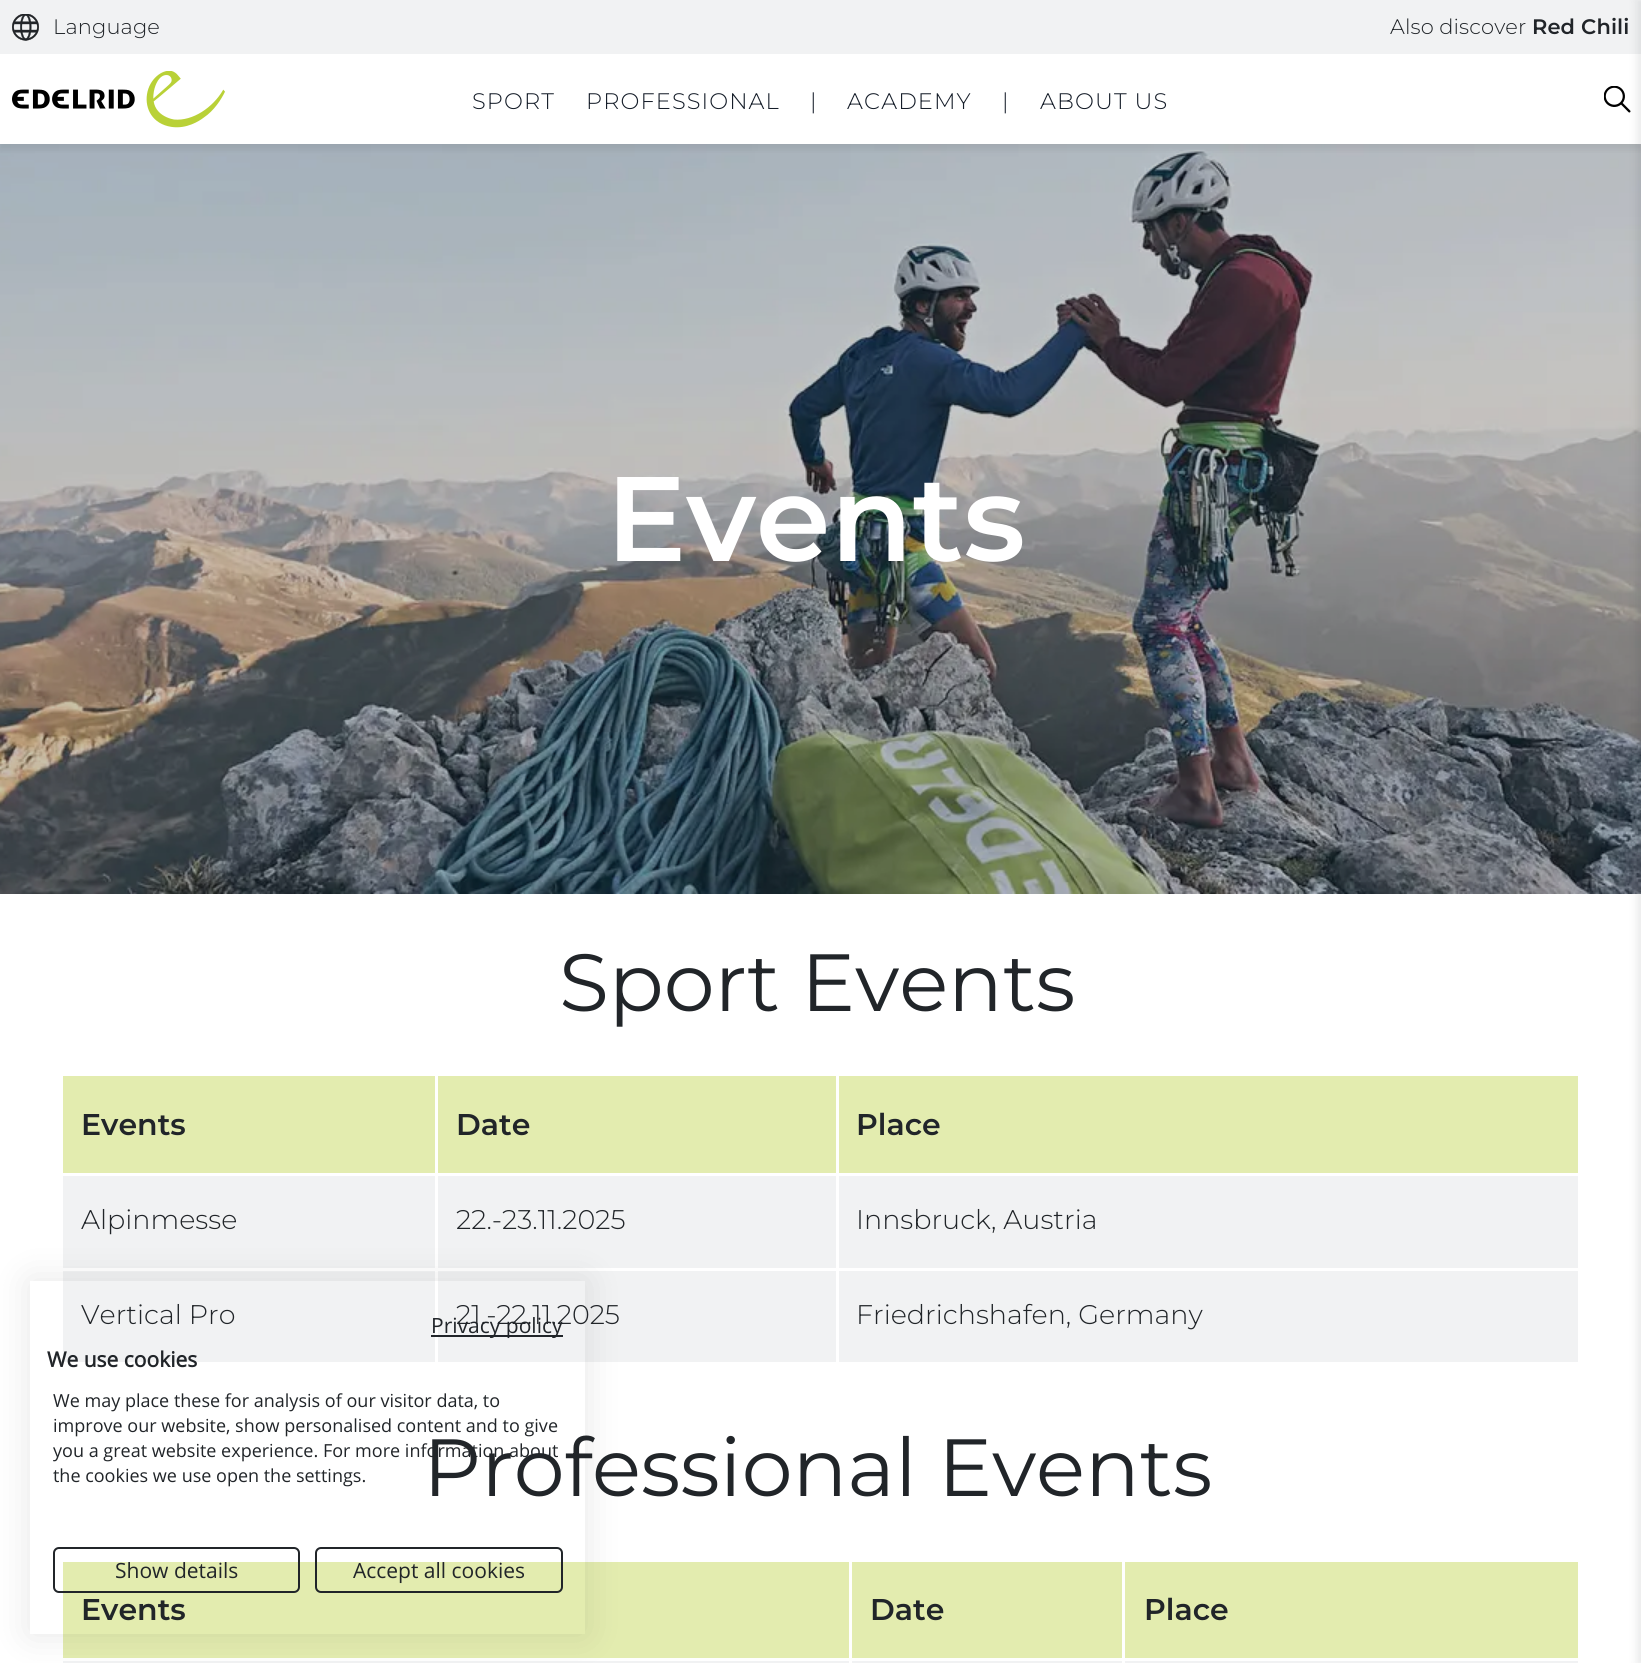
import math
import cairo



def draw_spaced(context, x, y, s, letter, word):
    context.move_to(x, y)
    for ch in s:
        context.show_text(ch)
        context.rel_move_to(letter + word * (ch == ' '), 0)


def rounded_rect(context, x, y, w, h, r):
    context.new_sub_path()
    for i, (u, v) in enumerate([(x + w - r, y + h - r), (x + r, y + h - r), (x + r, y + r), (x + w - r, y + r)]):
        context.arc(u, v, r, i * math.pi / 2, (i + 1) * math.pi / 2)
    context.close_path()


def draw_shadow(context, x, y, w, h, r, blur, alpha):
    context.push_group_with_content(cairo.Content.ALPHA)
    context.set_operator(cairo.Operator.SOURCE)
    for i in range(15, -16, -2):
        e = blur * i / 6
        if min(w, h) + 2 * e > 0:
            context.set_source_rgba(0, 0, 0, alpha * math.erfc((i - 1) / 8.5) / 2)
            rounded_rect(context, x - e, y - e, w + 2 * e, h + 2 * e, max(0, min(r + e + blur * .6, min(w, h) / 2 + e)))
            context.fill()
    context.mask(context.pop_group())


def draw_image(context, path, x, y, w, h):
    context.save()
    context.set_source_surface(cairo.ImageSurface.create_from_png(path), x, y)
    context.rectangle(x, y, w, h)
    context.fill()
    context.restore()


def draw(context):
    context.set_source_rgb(1, 1, 1)
    context.paint()
    context.set_source_rgb(241 / 255, 242 / 255, 243 / 255)
    context.rectangle(0, 0, 1641, 54)
    context.fill()
    draw_image(context, "images/1.png", 12, 14, 27, 27)
    draw_image(context, "images/4.png", 0, 144, 1641, 750)
    context.save()
    context.rectangle(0, 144, 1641, 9)
    context.clip()
    context.set_source_rgb(34 / 255, 37 / 255, 41 / 255)
    draw_shadow(context, 0, 59, 1641, 90, 0, 4.5, 0.1)
    context.restore()
    draw_image(context, "images/2.png", 12, 71, 213, 57)
    draw_image(context, "images/3.png", 1604, 86, 27, 27)
    context.set_source_rgb(34 / 255, 37 / 255, 41 / 255)
    draw_shadow(context, 1637, 0, 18, 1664, 0, 4.5, 0.1)
    context.set_source_rgb(227 / 255, 236 / 255, 175 / 255)
    context.rectangle(63, 1076, 372, 97)
    context.fill()
    context.rectangle(438, 1076, 398, 97)
    context.fill()
    context.rectangle(839, 1076, 739, 97)
    context.fill()
    context.set_source_rgb(241 / 255, 242 / 255, 243 / 255)
    context.rectangle(63, 1176, 372, 92)
    context.fill()
    context.rectangle(438, 1176, 398, 92)
    context.fill()
    context.rectangle(839, 1176, 739, 92)
    context.fill()
    context.rectangle(63, 1271, 372, 91)
    context.fill()
    context.rectangle(438, 1271, 398, 91)
    context.fill()
    context.rectangle(839, 1271, 739, 91)
    context.fill()
    context.set_source_rgb(227 / 255, 236 / 255, 175 / 255)
    context.rectangle(63, 1562, 786, 96)
    context.fill()
    context.rectangle(852, 1562, 270, 96)
    context.fill()
    context.rectangle(1125, 1562, 453, 96)
    context.fill()
    context.set_source_rgb(241 / 255, 242 / 255, 243 / 255)
    context.rectangle(63, 1661, 786, 2)
    context.fill()
    context.rectangle(852, 1661, 270, 2)
    context.fill()
    context.rectangle(1125, 1661, 453, 2)
    context.fill()
    context.save()
    context.set_fill_rule(cairo.FillRule.EVEN_ODD)
    context.new_path()
    context.move_to(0, 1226)
    context.line_to(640, 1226)
    context.line_to(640, 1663)
    context.line_to(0, 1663)
    context.close_path()
    context.move_to(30, 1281)
    context.line_to(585, 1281)
    context.line_to(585, 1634)
    context.line_to(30, 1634)
    context.close_path()
    context.clip()
    context.set_source_rgb(0, 0, 0)
    draw_shadow(context, 30, 1281, 555, 353, 0, 18, 0.1)
    context.restore()
    context.set_source_rgb(33 / 255, 37 / 255, 41 / 255)
    context.rectangle(431, 1335, 132, 2)
    context.fill()
    rounded_rect(context, 54, 1548, 245, 44, 5)
    context.stroke()
    rounded_rect(context, 316, 1548, 246, 44, 5)
    context.stroke()
    context.select_font_face("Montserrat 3 Thin")
    context.set_font_size(21)
    draw_spaced(context, 53, 34, "Language", 0.1, 0)
    draw_spaced(context, 1390, 34, "Also discover", 0.1, 0)
    context.select_font_face("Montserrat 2 Thin")
    draw_spaced(context, 1532, 34, "Red Chili", 0.1, 0)
    context.select_font_face("Montserrat 3 Thin")
    context.set_font_size(22.5)
    context.set_source_rgb(21 / 255, 29 / 255, 41 / 255)
    draw_spaced(context, 472, 109, "SPORT", 1.1, 0)
    draw_spaced(context, 586, 109, "PROFESSIONAL", 1.1, 0)
    draw_spaced(context, 810, 109, "|", 1.1, 0)
    draw_spaced(context, 847, 109, "ACADEMY", 1.1, 0)
    draw_spaced(context, 1002, 109, "|", 1.1, 0)
    draw_spaced(context, 1040, 109, "ABOUT US", 1.1, 0)
    context.select_font_face("Montserrat 2 Thin")
    context.set_font_size(120)
    context.set_source_rgb(1, 1, 1)
    context.move_to(606, 561)
    context.show_text("Events")
    context.select_font_face("Montserrat Thin")
    context.set_font_size(81)
    context.set_source_rgb(33 / 255, 37 / 255, 41 / 255)
    context.move_to(559, 1011)
    context.show_text("Sport Events")
    context.select_font_face("Montserrat 2 Thin")
    context.set_font_size(30)
    context.move_to(81, 1135)
    context.show_text("Events")
    context.move_to(456, 1135)
    context.show_text("Date")
    context.move_to(856, 1135)
    context.show_text("Place")
    context.select_font_face("Montserrat 3 Thin")
    context.set_font_size(27)
    context.move_to(81, 1229)
    context.show_text("Alpinmesse")
    context.move_to(456, 1229)
    context.show_text("22.-23.11.2025")
    context.move_to(856, 1229)
    context.show_text("Innsbruck, Austria")
    context.move_to(81, 1324)
    context.show_text("Vertical Pro")
    context.move_to(456, 1324)
    context.show_text("21.-22.11.2025")
    context.move_to(856, 1324)
    context.show_text("Friedrichshafen, Germany")
    context.select_font_face("Montserrat Thin")
    context.set_font_size(81)
    context.move_to(423, 1496)
    context.show_text("Professional Events")
    context.select_font_face("Montserrat 2 Thin")
    context.set_font_size(30)
    context.move_to(81, 1620)
    context.show_text("Events")
    context.move_to(870, 1620)
    context.show_text("Date")
    context.move_to(1144, 1620)
    context.show_text("Place")
    context.select_font_face("Open Sans")
    context.set_font_size(21)
    context.move_to(431, 1333)
    context.show_text("Privacy policy")
    context.select_font_face("Open Sans", cairo.FontSlant.NORMAL, cairo.FontWeight.BOLD)
    context.move_to(47, 1367)
    context.show_text("We use cookies")
    context.select_font_face("Open Sans")
    context.set_font_size(18)
    context.move_to(53, 1407)
    context.show_text("We may place these for analysis of our visitor data, to")
    context.move_to(53, 1432)
    context.show_text("improve our website, show personalised content and to give")
    context.move_to(53, 1457)
    context.show_text("you a great website experience. For more information about")
    context.move_to(53, 1482)
    context.show_text("the cookies we use open the settings.")
    context.set_font_size(21)
    context.move_to(115, 1578)
    context.show_text("Show details")
    context.move_to(353, 1578)
    context.show_text("Accept all cookies")


surface = cairo.ImageSurface(cairo.Format.RGB24, 1641, 1663)
context = cairo.Context(surface)
options = cairo.FontOptions()
options.set_hint_metrics(cairo.HintMetrics.OFF)
options.set_hint_style(cairo.HintStyle.NONE)
context.set_font_options(options)
context.set_miter_limit(4)
draw(context)
surface.write_to_png("out.png")
